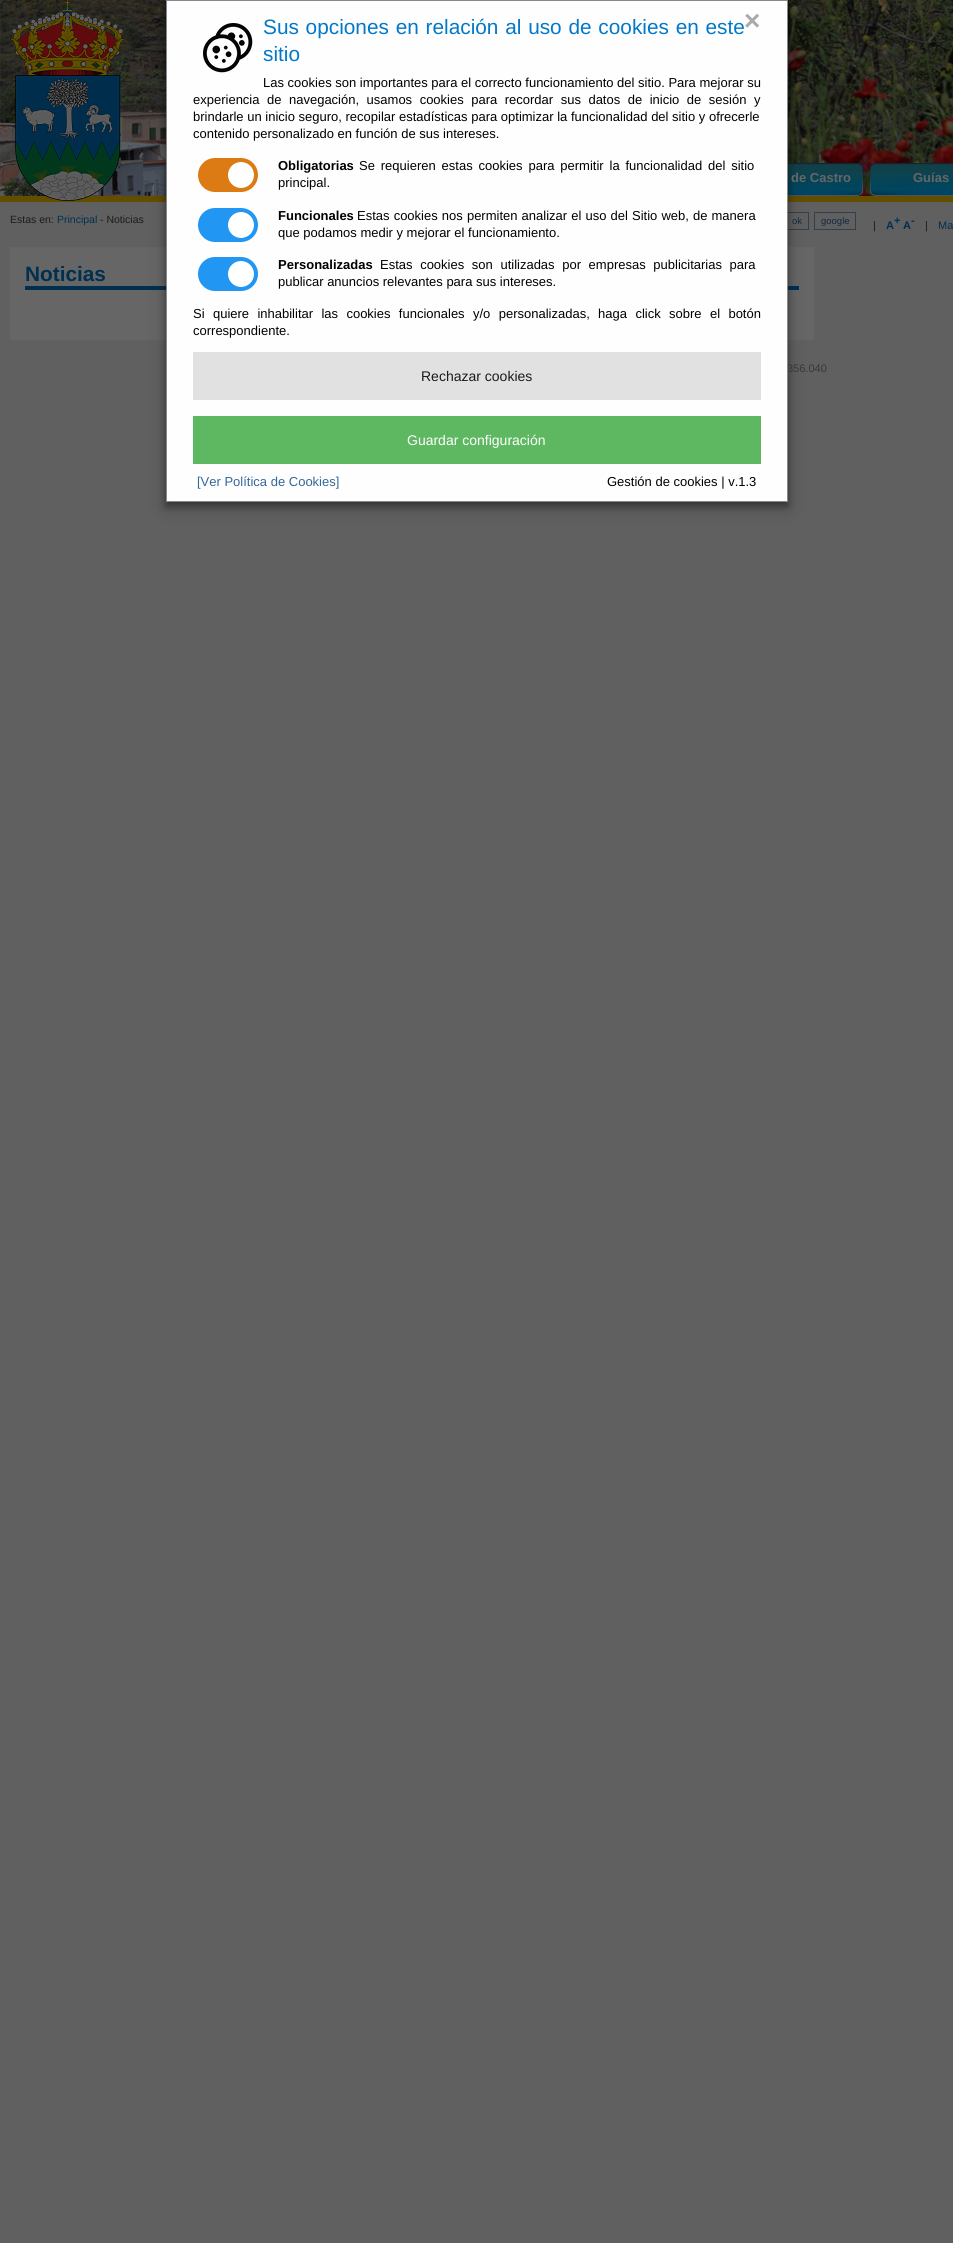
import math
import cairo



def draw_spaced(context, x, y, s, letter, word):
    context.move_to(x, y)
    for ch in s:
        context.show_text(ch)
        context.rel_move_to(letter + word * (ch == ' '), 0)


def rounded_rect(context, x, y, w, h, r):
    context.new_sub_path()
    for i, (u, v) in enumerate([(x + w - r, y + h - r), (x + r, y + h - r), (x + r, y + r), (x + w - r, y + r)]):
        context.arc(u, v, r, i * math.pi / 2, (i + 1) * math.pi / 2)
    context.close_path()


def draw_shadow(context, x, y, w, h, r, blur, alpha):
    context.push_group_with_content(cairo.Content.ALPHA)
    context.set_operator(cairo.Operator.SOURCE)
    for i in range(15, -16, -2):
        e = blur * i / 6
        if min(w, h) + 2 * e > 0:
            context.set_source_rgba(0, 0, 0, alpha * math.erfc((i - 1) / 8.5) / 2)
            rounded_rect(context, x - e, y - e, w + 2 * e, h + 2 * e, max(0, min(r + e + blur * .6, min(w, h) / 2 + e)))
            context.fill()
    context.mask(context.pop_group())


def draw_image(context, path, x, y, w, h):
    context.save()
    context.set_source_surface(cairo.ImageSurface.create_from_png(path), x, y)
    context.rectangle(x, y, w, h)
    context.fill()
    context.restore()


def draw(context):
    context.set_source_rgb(96 / 255, 96 / 255, 96 / 255)
    context.paint()
    draw_image(context, "images/2.png", 0, 0, 953, 196)
    context.set_source_rgb(99 / 255, 78 / 255, 0)
    context.rectangle(0, 196, 953, 6)
    context.fill()
    draw_image(context, "images/4.png", 788, 163, 75, 33)
    context.rectangle(785.5, 212.5, 23, 17)
    context.set_source_rgb(51 / 255, 63 / 255, 74 / 255)
    context.set_line_width(1)
    context.stroke()
    context.rectangle(814.5, 212.5, 41, 17)
    context.stroke()
    context.set_source_rgb(102 / 255, 102 / 255, 102 / 255)
    context.rectangle(10, 247, 804, 93)
    context.fill()
    context.set_source_rgb(0, 48 / 255, 80 / 255)
    context.rectangle(25, 286, 774, 4)
    context.fill()
    context.set_source_rgb(0, 0, 0)
    draw_shadow(context, 166, 6, 622, 502, 0, 10, 0.19)
    draw_shadow(context, 166, 4, 622, 502, 0, 4, 0.4)
    draw_image(context, "images/3.png", 10, 0, 115, 201)
    draw_image(context, "images/5.png", 870, 163, 83, 33)
    context.select_font_face("Liberation Sans", cairo.FontSlant.NORMAL, cairo.FontWeight.BOLD)
    context.set_font_size(13)
    context.set_source_rgb(102 / 255, 102 / 255, 102 / 255)
    context.move_to(791, 182)
    context.show_text("de Castro")
    context.move_to(913, 182)
    context.show_text("Guías")
    context.select_font_face("Liberation Sans")
    context.set_font_size(10.5)
    context.set_source_rgb(27 / 255, 27 / 255, 27 / 255)
    context.move_to(10, 223)
    context.show_text("Estas en:")
    context.set_source_rgb(0, 48 / 255, 80 / 255)
    context.move_to(57, 223)
    context.show_text("Principal")
    context.set_source_rgb(27 / 255, 27 / 255, 27 / 255)
    context.move_to(100, 223)
    context.show_text("- Noticias")
    context.set_font_size(9.5)
    context.set_source_rgb(20 / 255, 41 / 255, 61 / 255)
    context.move_to(792, 224)
    context.show_text("ok")
    context.move_to(821, 224)
    context.show_text("google")
    context.set_font_size(11)
    context.set_source_rgb(27 / 255, 27 / 255, 27 / 255)
    context.move_to(873, 229)
    context.show_text("|")
    context.select_font_face("Liberation Sans", cairo.FontSlant.NORMAL, cairo.FontWeight.BOLD)
    context.set_source_rgb(0, 48 / 255, 80 / 255)
    context.move_to(886, 229)
    context.show_text("A")
    context.move_to(894, 224)
    context.show_text("+")
    context.move_to(903, 229)
    context.show_text("A")
    context.move_to(911, 224)
    context.show_text("-")
    context.select_font_face("Liberation Sans")
    context.set_source_rgb(27 / 255, 27 / 255, 27 / 255)
    context.move_to(925, 229)
    context.show_text("|")
    context.set_source_rgb(0, 48 / 255, 80 / 255)
    context.move_to(938, 229)
    context.show_text("Ma")
    context.select_font_face("Liberation Sans", cairo.FontSlant.NORMAL, cairo.FontWeight.BOLD)
    context.set_font_size(20.8)
    context.move_to(25, 281)
    context.show_text("Noticias")
    context.select_font_face("Liberation Sans")
    context.set_font_size(11)
    context.set_source_rgb(55 / 255, 55 / 255, 55 / 255)
    context.move_to(787, 372)
    context.show_text("356.040")
    context.set_source_rgb(254 / 255, 254 / 255, 254 / 255)
    context.rectangle(166.5, 0.5, 621, 501)
    context.fill_preserve()
    context.set_source_rgb(136 / 255, 136 / 255, 136 / 255)
    context.stroke()
    context.set_source_rgb(94 / 255, 183 / 255, 97 / 255)
    context.rectangle(193, 416, 568, 48)
    context.fill()
    context.set_font_size(14)
    context.set_source_rgb(1, 1, 1)
    context.move_to(407, 445)
    context.show_text("Guardar configuración")
    context.set_source_rgb(225 / 255, 225 / 255, 225 / 255)
    context.rectangle(193, 352, 568, 48)
    context.fill()
    context.set_source_rgb(27 / 255, 27 / 255, 27 / 255)
    context.move_to(421, 381)
    context.show_text("Rechazar cookies")
    context.set_source_rgb(33 / 255, 150 / 255, 243 / 255)
    rounded_rect(context, 198, 257, 60, 34, 17)
    context.fill()
    context.set_source_rgb(1, 1, 1)
    context.arc(241, 274, 13, 0, 2 * math.pi)
    context.fill()
    context.set_source_rgb(33 / 255, 150 / 255, 243 / 255)
    rounded_rect(context, 198, 208, 60, 34, 17)
    context.fill()
    context.set_source_rgb(1, 1, 1)
    context.arc(241, 225, 13, 0, 2 * math.pi)
    context.fill()
    context.set_source_rgb(220 / 255, 123 / 255, 20 / 255)
    rounded_rect(context, 198, 158, 60, 34, 17)
    context.fill()
    context.set_source_rgb(1, 1, 1)
    context.arc(241, 175, 13, 0, 2 * math.pi)
    context.fill()
    context.set_font_size(13)
    context.set_source_rgb(0, 0, 0)
    context.move_to(607, 486)
    context.show_text("Gestión de cookies | v.1.3")
    context.move_to(193, 335)
    context.show_text("correspondiente.")
    draw_spaced(context, 193, 318, "Si quiere inhabilitar las cookies funcionales y/o personalizadas, haga click sobre el botón", 0, 4.75)
    context.move_to(278, 286)
    context.show_text("publicar anuncios relevantes para sus intereses.")
    draw_spaced(context, 380, 269, "Estas cookies son utilizadas por empresas publicitarias para", 0, 4)
    context.select_font_face("Liberation Sans", cairo.FontSlant.NORMAL, cairo.FontWeight.BOLD)
    context.move_to(278, 269)
    context.show_text("Personalizadas")
    context.select_font_face("Liberation Sans")
    context.move_to(278, 237)
    context.show_text("que podamos medir y mejorar el funcionamiento.")
    draw_spaced(context, 357, 220, "Estas cookies nos permiten analizar el uso del Sitio web, de manera", 0, 0.5)
    context.select_font_face("Liberation Sans", cairo.FontSlant.NORMAL, cairo.FontWeight.BOLD)
    context.move_to(278, 220)
    context.show_text("Funcionales")
    context.select_font_face("Liberation Sans")
    context.move_to(278, 187)
    context.show_text("principal.")
    draw_spaced(context, 359, 170, "Se requieren estas cookies para permitir la funcionalidad del sitio", 0, 2.25)
    context.select_font_face("Liberation Sans", cairo.FontSlant.NORMAL, cairo.FontWeight.BOLD)
    context.move_to(278, 170)
    context.show_text("Obligatorias")
    context.select_font_face("Liberation Sans")
    context.move_to(193, 138)
    context.show_text("contenido personalizado en función de sus intereses.")
    context.move_to(193, 121)
    context.show_text("brindarle un inicio seguro, recopilar estadísticas para optimizar la funcionalidad del sitio y ofrecerle")
    draw_spaced(context, 193, 104, "experiencia de navegación, usamos cookies para recordar sus datos de inicio de sesión y", 0, 3.9)
    context.move_to(263, 87)
    context.show_text("Las cookies son importantes para el correcto funcionamiento del sitio. Para mejorar su")
    context.set_font_size(20.8)
    context.set_source_rgb(1 / 255, 120 / 255, 200 / 255)
    context.move_to(263, 61)
    context.show_text("sitio")
    draw_spaced(context, 263, 34, "Sus opciones en relación al uso de cookies en este", 0, 1)
    context.set_font_size(13)
    context.set_source_rgb(51 / 255, 102 / 255, 153 / 255)
    context.move_to(197, 486)
    context.show_text("[Ver Política de Cookies]")
    draw_image(context, "images/1.png", 203, 23, 50, 50)
    context.select_font_face("Liberation Sans", cairo.FontSlant.NORMAL, cairo.FontWeight.BOLD)
    context.set_font_size(28)
    context.set_source_rgb(170 / 255, 170 / 255, 170 / 255)
    context.move_to(744, 30)
    context.show_text("×")


surface = cairo.ImageSurface(cairo.Format.RGB24, 953, 2243)
context = cairo.Context(surface)
options = cairo.FontOptions()
options.set_hint_metrics(cairo.HintMetrics.OFF)
options.set_hint_style(cairo.HintStyle.NONE)
context.set_font_options(options)
context.set_miter_limit(4)
draw(context)
surface.write_to_png("out.png")
